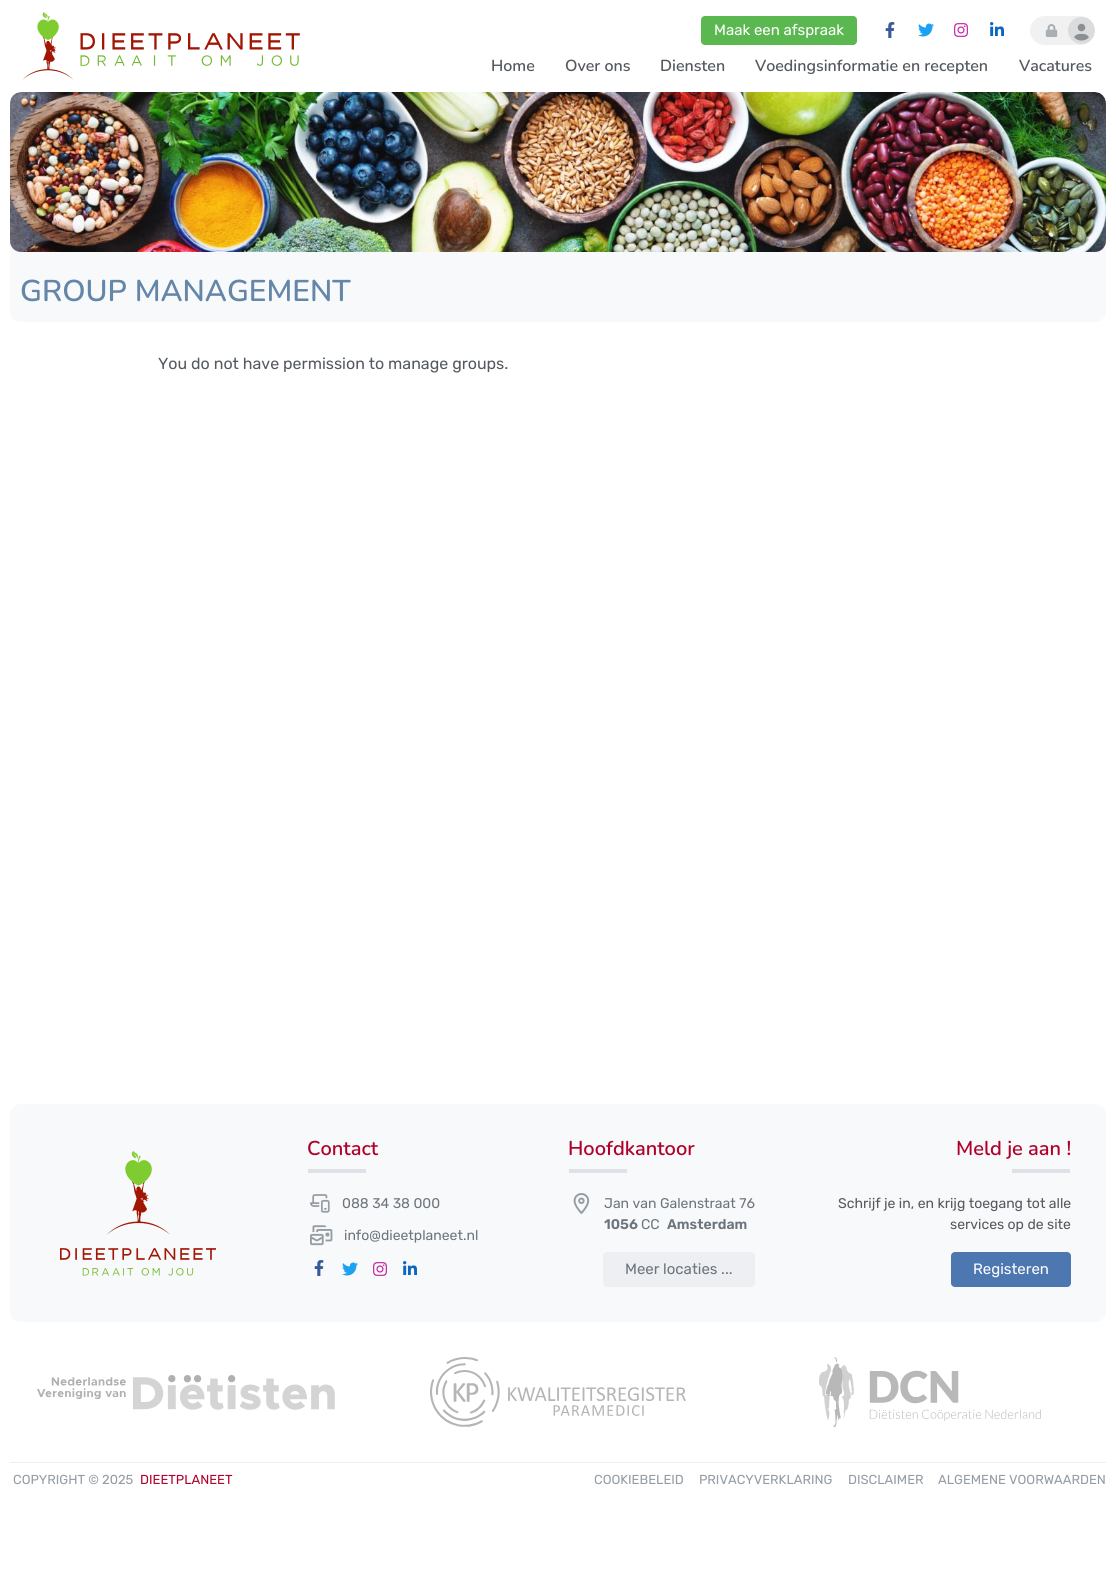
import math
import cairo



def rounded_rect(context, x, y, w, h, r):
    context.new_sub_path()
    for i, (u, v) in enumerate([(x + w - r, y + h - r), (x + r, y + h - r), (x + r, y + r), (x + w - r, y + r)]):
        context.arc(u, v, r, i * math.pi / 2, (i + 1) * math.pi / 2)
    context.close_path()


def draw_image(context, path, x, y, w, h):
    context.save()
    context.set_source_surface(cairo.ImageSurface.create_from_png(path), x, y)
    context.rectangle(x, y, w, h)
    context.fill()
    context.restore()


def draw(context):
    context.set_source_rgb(1, 1, 1)
    context.paint()
    draw_image(context, "images/1.png", 22, 12, 278, 68)
    context.set_source_rgb(91 / 255, 184 / 255, 81 / 255)
    rounded_rect(context, 701, 16, 156, 29, 4)
    context.fill()
    draw_image(context, "images/2.png", 885, 22, 10, 16)
    draw_image(context, "images/3.png", 918, 23, 16, 14)
    draw_image(context, "images/4.png", 954, 23, 14, 14)
    draw_image(context, "images/5.png", 990, 22, 14, 14)
    context.set_source_rgb(241 / 255, 241 / 255, 242 / 255)
    rounded_rect(context, 1030, 16, 65, 29, 14.5)
    context.fill()
    draw_image(context, "images/6.png", 1045, 24, 13, 13)
    draw_image(context, "images/7.png", 1068, 17, 27, 27)
    context.set_source_rgb(248 / 255, 249 / 255, 250 / 255)
    rounded_rect(context, 10, 92, 1096, 230, 11)
    context.fill()
    draw_image(context, "images/8.png", 10, 92, 1096, 160)
    rounded_rect(context, 10, 1104, 1096, 218, 11)
    context.fill()
    draw_image(context, "images/9.png", 60, 1151, 156, 125)
    context.set_source_rgb(222 / 255, 226 / 255, 230 / 255)
    context.rectangle(308, 1169, 58, 4)
    context.fill()
    draw_image(context, "images/10.png", 310, 1194, 20, 19)
    draw_image(context, "images/11.png", 310, 1225, 23, 21)
    draw_image(context, "images/12.png", 314, 1260, 10, 16)
    draw_image(context, "images/13.png", 342, 1262, 16, 14)
    draw_image(context, "images/14.png", 373, 1262, 14, 14)
    draw_image(context, "images/15.png", 403, 1261, 14, 14)
    context.rectangle(569, 1169, 58, 4)
    context.fill()
    draw_image(context, "images/16.png", 573, 1193, 17, 21)
    context.set_source_rgb(237 / 255, 239 / 255, 242 / 255)
    rounded_rect(context, 603, 1252, 152, 35, 4)
    context.fill()
    context.set_source_rgb(222 / 255, 226 / 255, 230 / 255)
    context.rectangle(1012, 1169, 58, 4)
    context.fill()
    context.set_source_rgb(77 / 255, 119 / 255, 176 / 255)
    rounded_rect(context, 951, 1252, 120, 35, 4)
    context.fill()
    draw_image(context, "images/17.png", 37, 1375, 298, 35)
    draw_image(context, "images/18.png", 430, 1357, 256, 70)
    draw_image(context, "images/19.png", 819, 1357, 222, 70)
    context.set_source_rgb(237 / 255, 239 / 255, 242 / 255)
    context.rectangle(10, 1462, 1096, 1)
    context.fill()
    context.select_font_face("Rubik")
    context.set_font_size(15)
    context.set_source_rgb(1, 1, 1)
    context.move_to(714, 35)
    context.show_text("Maak een afspraak")
    context.select_font_face("Nunito SemiBold")
    context.set_font_size(16)
    context.set_source_rgb(84 / 255, 89 / 255, 95 / 255)
    context.move_to(491, 71)
    context.show_text("Home")
    context.move_to(565, 71)
    context.show_text("Over ons")
    context.move_to(660, 71)
    context.show_text("Diensten")
    context.move_to(755, 71)
    context.show_text("Voedingsinformatie en recepten")
    context.move_to(1019, 71)
    context.show_text("Vacatures")
    context.set_font_size(30)
    context.set_source_rgb(100 / 255, 134 / 255, 168 / 255)
    context.move_to(20, 301)
    context.show_text("GROUP MANAGEMENT")
    context.select_font_face("Rubik")
    context.set_font_size(16)
    context.set_source_rgb(84 / 255, 89 / 255, 95 / 255)
    context.move_to(158, 369)
    context.show_text("You do not have permission to manage groups.")
    context.select_font_face("Nunito SemiBold")
    context.set_font_size(20)
    context.set_source_rgb(175 / 255, 1 / 255, 44 / 255)
    context.move_to(307, 1155)
    context.show_text("Contact")
    context.select_font_face("Rubik")
    context.set_font_size(14)
    context.set_source_rgb(108 / 255, 117 / 255, 125 / 255)
    context.move_to(342, 1208)
    context.show_text("088 34 38 000")
    context.move_to(344, 1240)
    context.show_text("info@dieetplaneet.nl")
    context.select_font_face("Nunito SemiBold")
    context.set_font_size(20)
    context.set_source_rgb(175 / 255, 1 / 255, 44 / 255)
    context.move_to(568, 1155)
    context.show_text("Hoofdkantoor")
    context.select_font_face("Rubik")
    context.set_font_size(14)
    context.set_source_rgb(108 / 255, 117 / 255, 125 / 255)
    context.move_to(604, 1208)
    context.show_text("Jan van Galenstraat 76")
    context.select_font_face("Rubik SemiBold")
    context.move_to(604, 1229)
    context.show_text("1056")
    context.select_font_face("Rubik")
    context.move_to(641, 1229)
    context.show_text("CC")
    context.select_font_face("Rubik SemiBold")
    context.move_to(667, 1229)
    context.show_text("Amsterdam")
    context.select_font_face("Rubik")
    context.set_font_size(15)
    context.move_to(625, 1274)
    context.show_text("Meer locaties ...")
    context.select_font_face("Nunito SemiBold")
    context.set_font_size(20)
    context.set_source_rgb(175 / 255, 1 / 255, 44 / 255)
    context.move_to(956, 1155)
    context.show_text("Meld je aan !")
    context.select_font_face("Rubik")
    context.set_font_size(14)
    context.set_source_rgb(84 / 255, 89 / 255, 95 / 255)
    context.move_to(838, 1208)
    context.show_text("Schrijf je in, en krijg toegang tot alle")
    context.move_to(950, 1229)
    context.show_text("services op de site")
    context.set_font_size(15)
    context.set_source_rgb(1, 1, 1)
    context.move_to(973, 1274)
    context.show_text("Registeren")
    context.set_font_size(13)
    context.set_source_rgb(148 / 255, 156 / 255, 164 / 255)
    context.move_to(13, 1484)
    context.show_text("COPYRIGHT © 2025")
    context.set_source_rgb(175 / 255, 1 / 255, 44 / 255)
    context.move_to(140, 1484)
    context.show_text("DIEETPLANEET")
    context.set_source_rgb(148 / 255, 156 / 255, 164 / 255)
    context.move_to(594, 1484)
    context.show_text("COOKIEBELEID")
    context.move_to(699, 1484)
    context.show_text("PRIVACYVERKLARING")
    context.move_to(848, 1484)
    context.show_text("DISCLAIMER")
    context.move_to(938, 1484)
    context.show_text("ALGEMENE VOORWAARDEN")


surface = cairo.ImageSurface(cairo.Format.RGB24, 1116, 1571)
context = cairo.Context(surface)
options = cairo.FontOptions()
options.set_hint_metrics(cairo.HintMetrics.OFF)
options.set_hint_style(cairo.HintStyle.NONE)
context.set_font_options(options)
context.set_miter_limit(4)
draw(context)
surface.write_to_png("out.png")
